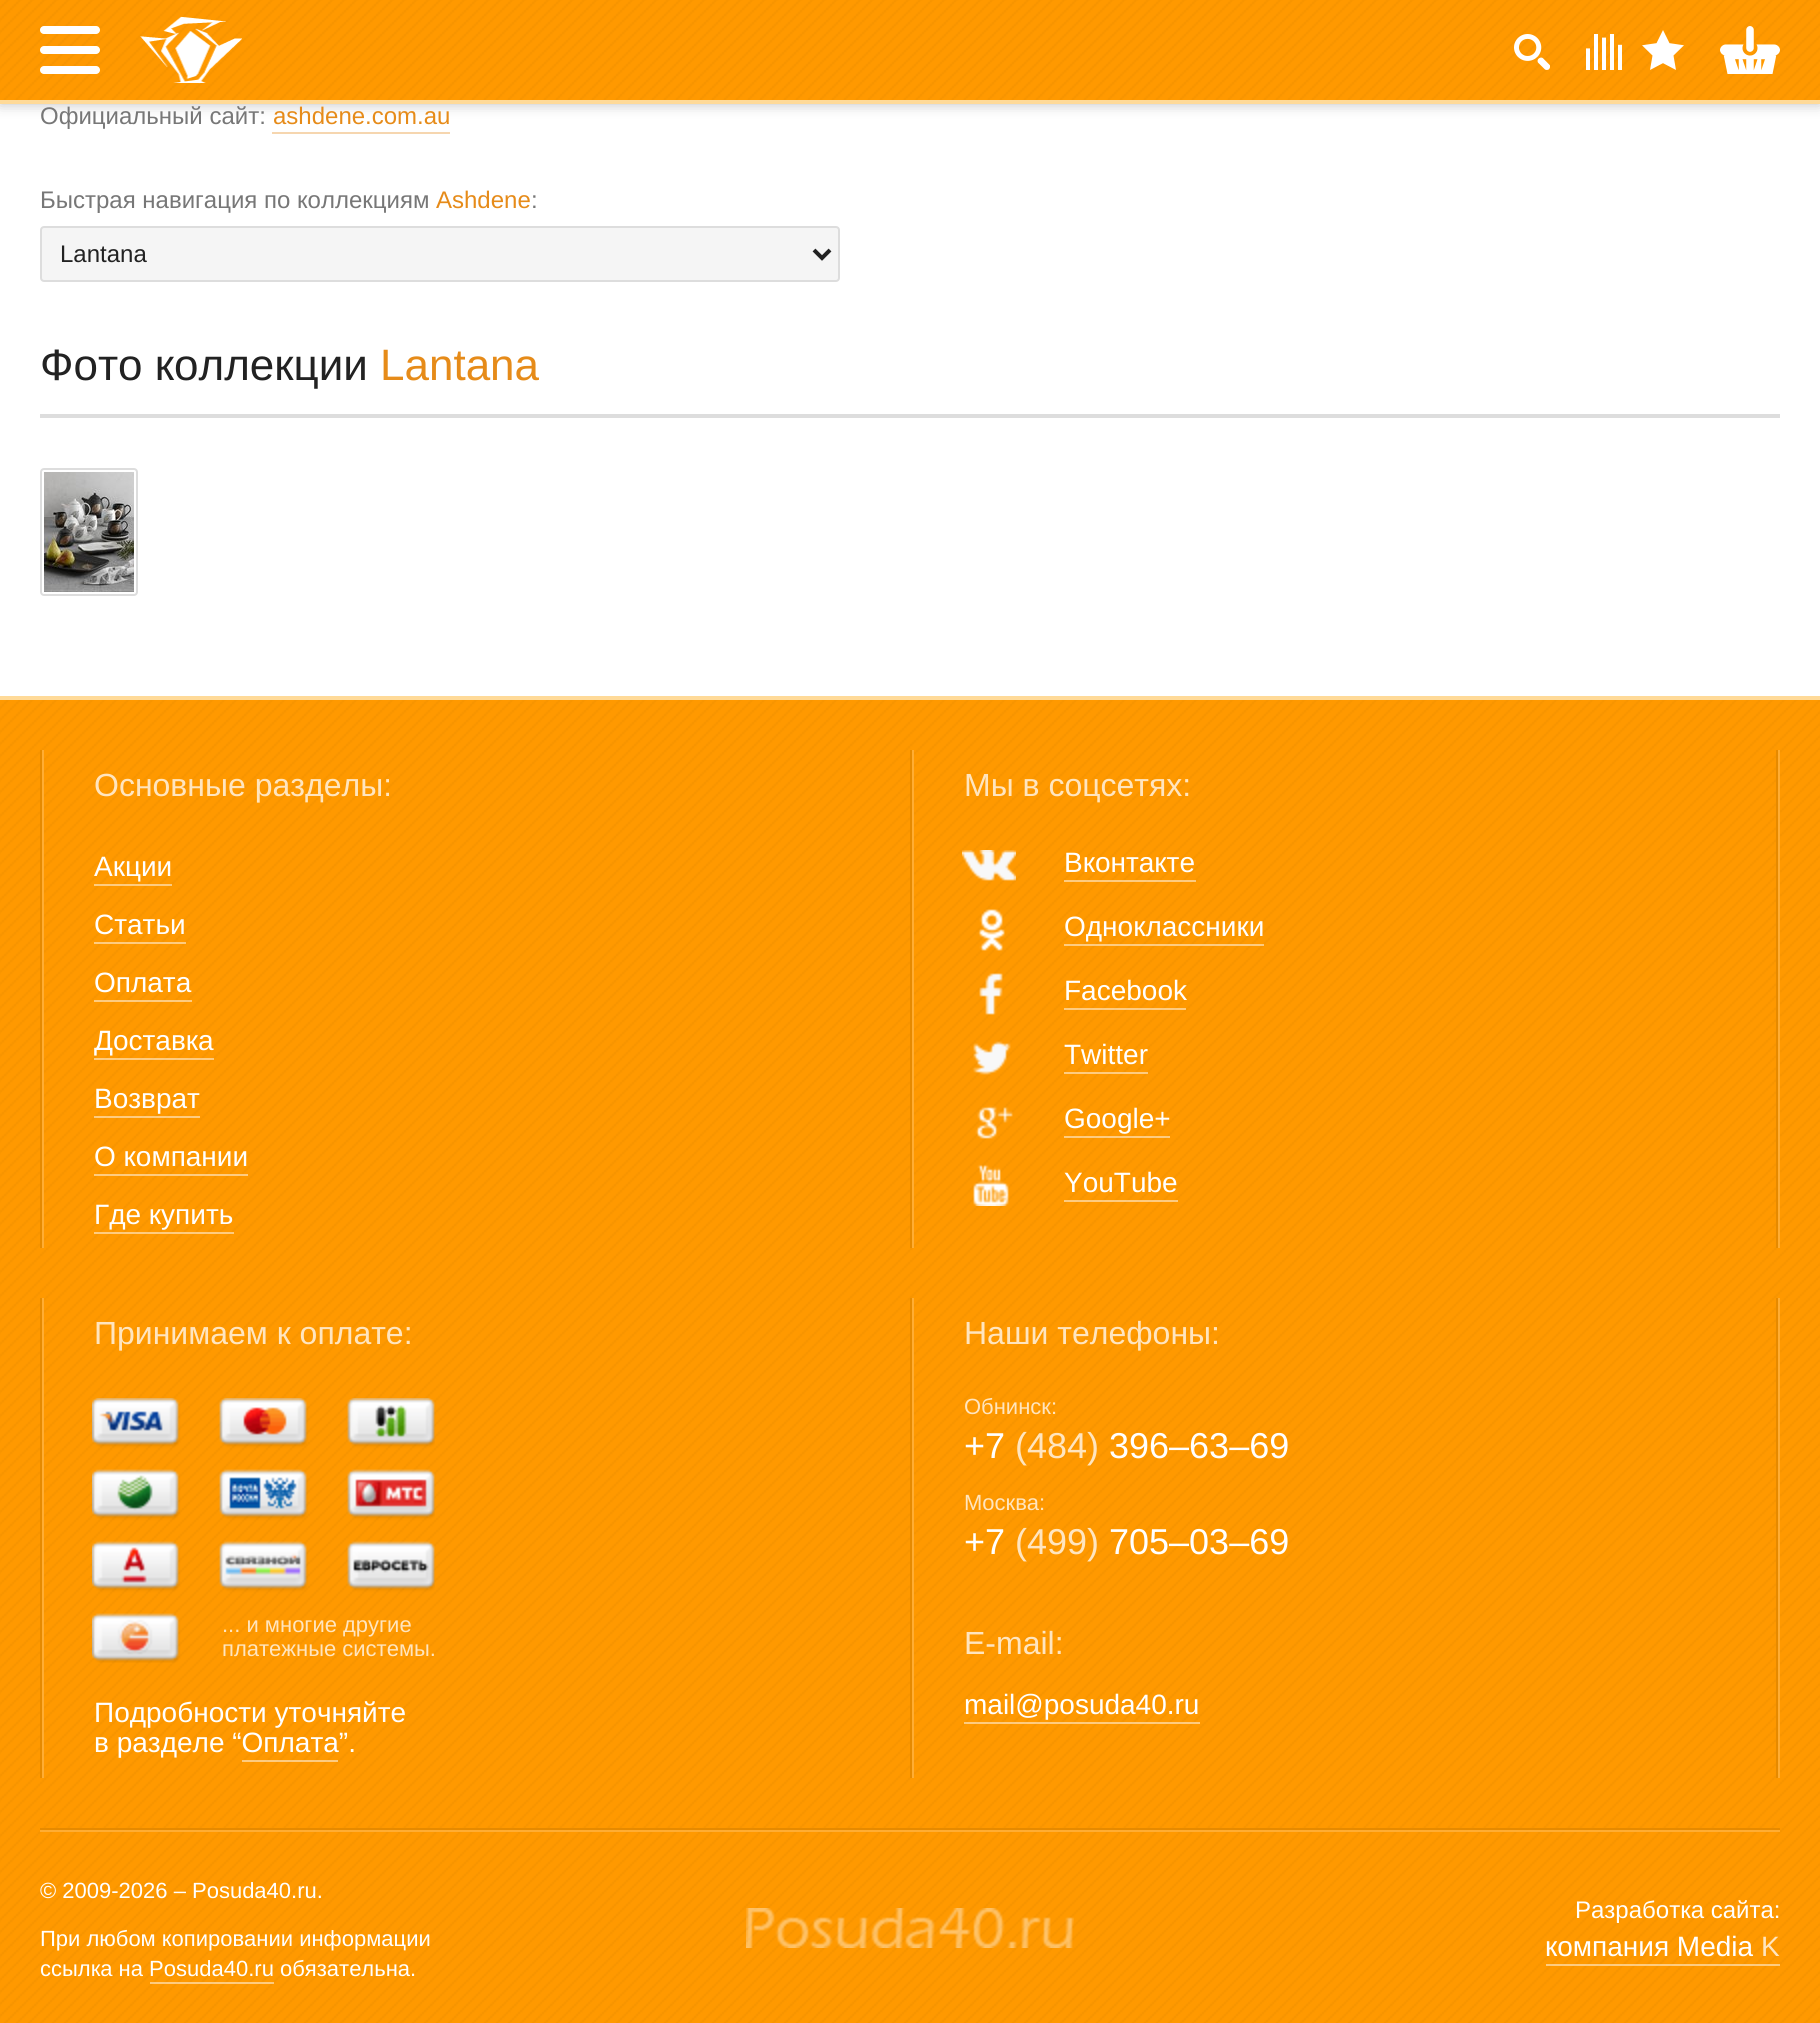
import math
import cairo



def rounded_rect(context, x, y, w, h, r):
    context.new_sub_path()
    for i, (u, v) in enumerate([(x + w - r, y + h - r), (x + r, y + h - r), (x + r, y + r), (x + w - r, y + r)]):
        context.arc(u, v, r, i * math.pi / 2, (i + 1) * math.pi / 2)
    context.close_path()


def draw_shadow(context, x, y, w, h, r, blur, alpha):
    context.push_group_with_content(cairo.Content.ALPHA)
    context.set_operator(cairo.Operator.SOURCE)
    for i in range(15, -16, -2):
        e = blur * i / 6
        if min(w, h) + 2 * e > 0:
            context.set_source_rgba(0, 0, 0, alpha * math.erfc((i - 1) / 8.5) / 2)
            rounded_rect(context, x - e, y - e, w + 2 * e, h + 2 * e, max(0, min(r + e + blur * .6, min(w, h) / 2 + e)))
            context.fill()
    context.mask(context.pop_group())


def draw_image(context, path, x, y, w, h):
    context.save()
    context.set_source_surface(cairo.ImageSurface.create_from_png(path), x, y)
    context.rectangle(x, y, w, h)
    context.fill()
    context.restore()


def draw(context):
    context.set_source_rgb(1, 1, 1)
    context.paint()
    context.set_source_rgb(0, 0, 0)
    draw_shadow(context, 0, 0, 1820, 104, 0, 7, 0.25)
    context.set_source_rgb(1, 153 / 255, 0)
    context.rectangle(0, 0, 1820, 100)
    context.fill()
    draw_image(context, "images/1.png", 0, 0, 1820, 100)
    context.set_source_rgb(1, 218 / 255, 152 / 255)
    context.rectangle(0, 100, 1820, 4)
    context.fill()
    context.set_source_rgb(1, 1, 1)
    rounded_rect(context, 40, 26, 60, 8, 4)
    context.fill()
    rounded_rect(context, 40, 46, 60, 8, 4)
    context.fill()
    rounded_rect(context, 40, 66, 60, 8, 4)
    context.fill()
    draw_image(context, "images/2.png", 140, 16, 102, 68)
    draw_image(context, "images/3.png", 1514, 34, 36, 36)
    draw_image(context, "images/4.png", 1586, 34, 36, 36)
    draw_image(context, "images/5.png", 1642, 30, 42, 40)
    draw_image(context, "images/6.png", 1720, 26, 60, 48)
    context.set_source_rgb(246 / 255, 214 / 255, 175 / 255)
    context.rectangle(272, 132, 178, 2)
    context.fill()
    context.set_source_rgb(245 / 255, 245 / 255, 245 / 255)
    rounded_rect(context, 41, 227, 798, 54, 3)
    context.fill_preserve()
    context.set_source_rgb(221 / 255, 221 / 255, 221 / 255)
    context.stroke()
    context.new_path()
    context.move_to(814, 250)
    context.line_to(822, 258)
    context.line_to(830, 250)
    context.set_source_rgb(34 / 255, 34 / 255, 34 / 255)
    context.set_line_width(4)
    context.stroke()
    context.set_source_rgb(221 / 255, 221 / 255, 221 / 255)
    context.rectangle(40, 414, 1740, 4)
    context.fill()
    rounded_rect(context, 41, 469, 96, 126, 3)
    context.set_line_width(2)
    context.stroke()
    draw_image(context, "images/7.png", 44, 472, 90, 120)
    context.set_source_rgb(1, 153 / 255, 0)
    context.rectangle(0, 700, 1820, 1323)
    context.fill()
    draw_image(context, "images/8.png", 0, 700, 1820, 1323)
    context.set_source_rgb(1, 218 / 255, 152 / 255)
    context.rectangle(0, 696, 1820, 4)
    context.fill()
    context.set_source_rgb(230 / 255, 138 / 255, 0)
    context.rectangle(40, 750, 2, 498)
    context.fill()
    context.set_source_rgb(1, 173 / 255, 51 / 255)
    context.rectangle(42, 750, 2, 498)
    context.fill()
    context.set_source_rgba(1, 1, 1, 0.5)
    context.rectangle(94, 884, 78, 2)
    context.fill()
    context.rectangle(94, 942, 92, 2)
    context.fill()
    context.rectangle(94, 1000, 98, 2)
    context.fill()
    context.rectangle(94, 1058, 120, 2)
    context.fill()
    context.rectangle(94, 1116, 106, 2)
    context.fill()
    context.rectangle(94, 1174, 154, 2)
    context.fill()
    context.rectangle(94, 1232, 140, 2)
    context.fill()
    draw_image(context, "images/9.png", 962, 850, 54, 356)
    context.set_source_rgb(1, 173 / 255, 51 / 255)
    context.rectangle(1778, 750, 2, 498)
    context.fill()
    context.set_source_rgb(230 / 255, 138 / 255, 0)
    context.rectangle(910, 750, 2, 498)
    context.fill()
    context.set_source_rgb(1, 173 / 255, 51 / 255)
    context.rectangle(912, 750, 2, 498)
    context.fill()
    context.set_source_rgb(230 / 255, 138 / 255, 0)
    context.rectangle(1776, 750, 2, 498)
    context.fill()
    context.set_source_rgba(1, 1, 1, 0.5)
    context.rectangle(1064, 880, 132, 2)
    context.fill()
    context.rectangle(1064, 944, 200, 2)
    context.fill()
    context.rectangle(1064, 1008, 122, 2)
    context.fill()
    context.rectangle(1064, 1072, 84, 2)
    context.fill()
    context.rectangle(1064, 1136, 106, 2)
    context.fill()
    context.rectangle(1064, 1200, 114, 2)
    context.fill()
    draw_image(context, "images/10.png", 92, 1398, 343, 265)
    context.set_source_rgb(230 / 255, 138 / 255, 0)
    context.rectangle(40, 1298, 2, 480)
    context.fill()
    context.set_source_rgb(1, 173 / 255, 51 / 255)
    context.rectangle(42, 1298, 2, 480)
    context.fill()
    context.set_source_rgba(1, 1, 1, 0.5)
    context.rectangle(242, 1760, 96, 2)
    context.fill()
    context.set_source_rgb(1, 173 / 255, 51 / 255)
    context.rectangle(1778, 1298, 2, 480)
    context.fill()
    context.set_source_rgb(230 / 255, 138 / 255, 0)
    context.rectangle(910, 1298, 2, 480)
    context.fill()
    context.set_source_rgb(1, 173 / 255, 51 / 255)
    context.rectangle(912, 1298, 2, 480)
    context.fill()
    context.set_source_rgb(230 / 255, 138 / 255, 0)
    context.rectangle(1776, 1298, 2, 480)
    context.fill()
    context.set_source_rgba(1, 1, 1, 0.5)
    context.rectangle(964, 1722, 236, 2)
    context.fill()
    context.set_source_rgb(1, 173 / 255, 51 / 255)
    context.rectangle(40, 1830, 1740, 2)
    context.fill()
    context.set_source_rgb(230 / 255, 138 / 255, 0)
    context.rectangle(40, 1828, 1740, 2)
    context.fill()
    context.set_source_rgba(1, 1, 1, 0.5)
    context.rectangle(150, 1982, 124, 2)
    context.fill()
    draw_image(context, "images/11.png", 746, 1908, 328, 40)
    context.rectangle(1546, 1964, 216, 2)
    context.fill()
    context.rectangle(1762, 1964, 18, 2)
    context.fill()
    context.select_font_face("Liberation Sans")
    context.set_font_size(24)
    context.set_source_rgb(119 / 255, 119 / 255, 119 / 255)
    context.move_to(40, 124)
    context.show_text("Официальный сайт:")
    context.set_source_rgb(230 / 255, 139 / 255, 25 / 255)
    context.move_to(273, 124)
    context.show_text("ashdene.com.au")
    context.set_source_rgb(119 / 255, 119 / 255, 119 / 255)
    context.move_to(40, 208)
    context.show_text("Быстрая навигация по коллекциям")
    context.set_source_rgb(230 / 255, 139 / 255, 25 / 255)
    context.move_to(436, 208)
    context.show_text("Ashdene")
    context.set_source_rgb(119 / 255, 119 / 255, 119 / 255)
    context.move_to(531, 208)
    context.show_text(":")
    context.set_source_rgb(34 / 255, 34 / 255, 34 / 255)
    context.move_to(60, 262)
    context.show_text("Lantana")
    context.set_font_size(44)
    context.move_to(40, 380)
    context.show_text("Фото коллекции")
    context.set_source_rgb(230 / 255, 139 / 255, 25 / 255)
    context.move_to(380, 380)
    context.show_text("Lantana")
    context.set_font_size(32)
    context.set_source_rgb(1, 229 / 255, 191 / 255)
    context.move_to(94, 796)
    context.show_text("Основные разделы:")
    context.set_font_size(28)
    context.set_source_rgb(1, 1, 1)
    context.move_to(94, 876)
    context.show_text("Акции")
    context.move_to(94, 934)
    context.show_text("Статьи")
    context.move_to(94, 992)
    context.show_text("Оплата")
    context.move_to(94, 1050)
    context.show_text("Доставка")
    context.move_to(94, 1108)
    context.show_text("Возврат")
    context.move_to(94, 1166)
    context.show_text("О компании")
    context.move_to(94, 1224)
    context.show_text("Где купить")
    context.set_font_size(32)
    context.set_source_rgb(1, 229 / 255, 191 / 255)
    context.move_to(964, 796)
    context.show_text("Мы в соцсетях:")
    context.set_font_size(28)
    context.set_source_rgb(1, 1, 1)
    context.move_to(1064, 872)
    context.show_text("Вконтакте")
    context.move_to(1064, 936)
    context.show_text("Одноклассники")
    context.move_to(1064, 1000)
    context.show_text("Facebook")
    context.move_to(1064, 1064)
    context.show_text("Twitter")
    context.move_to(1064, 1128)
    context.show_text("Google+")
    context.move_to(1064, 1192)
    context.show_text("YouTube")
    context.set_font_size(32)
    context.set_source_rgb(1, 229 / 255, 191 / 255)
    context.move_to(94, 1344)
    context.show_text("Принимаем к оплате:")
    context.set_font_size(22)
    context.move_to(222, 1632)
    context.show_text("... и многие другие")
    context.move_to(222, 1656)
    context.show_text("платежные системы.")
    context.set_font_size(28)
    context.set_source_rgb(1, 1, 1)
    context.move_to(94, 1722)
    context.show_text("Подробности уточняйте")
    context.move_to(94, 1752)
    context.show_text("в разделе “Оплата”.")
    context.set_font_size(32)
    context.set_source_rgb(1, 229 / 255, 191 / 255)
    context.move_to(964, 1344)
    context.show_text("Наши телефоны:")
    context.set_font_size(22)
    context.move_to(964, 1414)
    context.show_text("Обнинск:")
    context.set_font_size(36)
    context.set_source_rgb(1, 1, 1)
    context.move_to(964, 1458)
    context.show_text("+7")
    context.set_source_rgb(1, 229 / 255, 191 / 255)
    context.move_to(1015, 1458)
    context.show_text("(484)")
    context.set_source_rgb(1, 1, 1)
    context.move_to(1109, 1458)
    context.show_text("396‒63‒69")
    context.set_font_size(22)
    context.set_source_rgb(1, 229 / 255, 191 / 255)
    context.move_to(964, 1510)
    context.show_text("Москва:")
    context.set_font_size(36)
    context.set_source_rgb(1, 1, 1)
    context.move_to(964, 1554)
    context.show_text("+7")
    context.set_source_rgb(1, 229 / 255, 191 / 255)
    context.move_to(1015, 1554)
    context.show_text("(499)")
    context.set_source_rgb(1, 1, 1)
    context.move_to(1109, 1554)
    context.show_text("705‒03‒69")
    context.set_font_size(32)
    context.set_source_rgb(1, 229 / 255, 191 / 255)
    context.move_to(964, 1654)
    context.show_text("E-mail:")
    context.set_font_size(28)
    context.set_source_rgb(1, 1, 1)
    context.move_to(964, 1714)
    context.show_text("mail@posuda40.ru")
    context.set_font_size(22)
    context.move_to(40, 1898)
    context.show_text("© 2009-2026 – Posuda40.ru.")
    context.move_to(40, 1946)
    context.show_text("При любом копировании информации")
    context.move_to(40, 1976)
    context.show_text("ссылка на Posuda40.ru обязательна.")
    context.set_font_size(24)
    context.move_to(1575, 1918)
    context.show_text("Разработка сайта:")
    context.set_font_size(28)
    context.move_to(1545, 1956)
    context.show_text("компания Media")
    context.set_source_rgb(1, 229 / 255, 191 / 255)
    context.move_to(1761, 1956)
    context.show_text("K")


surface = cairo.ImageSurface(cairo.Format.RGB24, 1820, 2023)
context = cairo.Context(surface)
options = cairo.FontOptions()
options.set_hint_metrics(cairo.HintMetrics.OFF)
options.set_hint_style(cairo.HintStyle.NONE)
context.set_font_options(options)
context.set_miter_limit(4)
draw(context)
surface.write_to_png("out.png")
